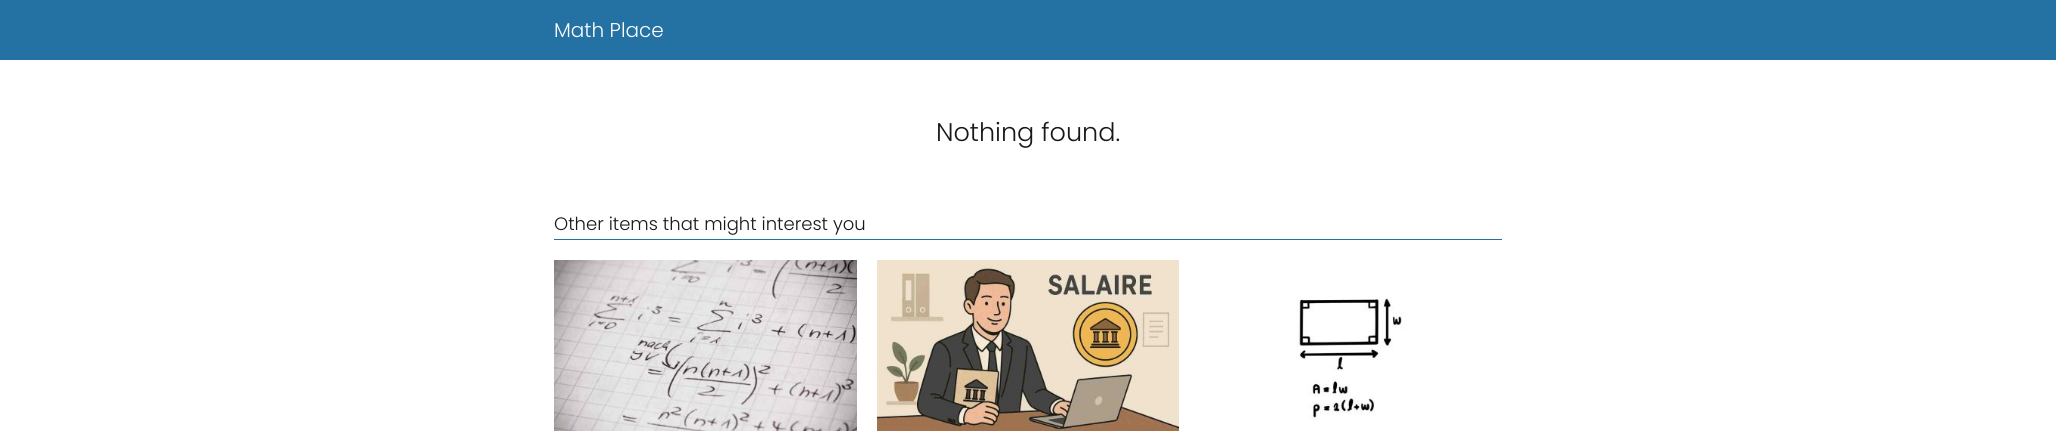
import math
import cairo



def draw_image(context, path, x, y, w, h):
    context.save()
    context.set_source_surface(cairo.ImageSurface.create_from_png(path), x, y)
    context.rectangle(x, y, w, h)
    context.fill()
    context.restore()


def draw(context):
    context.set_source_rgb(1, 1, 1)
    context.paint()
    context.set_source_rgb(36 / 255, 113 / 255, 163 / 255)
    context.rectangle(0, 0, 2056, 60)
    context.fill()
    context.rectangle(554, 239, 948, 1)
    context.fill()
    draw_image(context, "images/1.png", 554, 260, 303, 171)
    draw_image(context, "images/2.png", 877, 260, 302, 171)
    draw_image(context, "images/3.png", 1296, 298, 109, 122)
    context.select_font_face("Poppins Light")
    context.set_font_size(20)
    context.set_source_rgb(1, 1, 1)
    context.move_to(554, 37)
    context.show_text("Math Place")
    context.set_font_size(25.5)
    context.set_source_rgb(24 / 255, 24 / 255, 24 / 255)
    context.move_to(936, 141)
    context.show_text("Nothing found.")
    context.set_font_size(18)
    context.move_to(554, 230)
    context.show_text("Other items that might interest you")


surface = cairo.ImageSurface(cairo.Format.RGB24, 2056, 431)
context = cairo.Context(surface)
options = cairo.FontOptions()
options.set_hint_metrics(cairo.HintMetrics.OFF)
options.set_hint_style(cairo.HintStyle.NONE)
context.set_font_options(options)
context.set_miter_limit(4)
draw(context)
surface.write_to_png("out.png")
